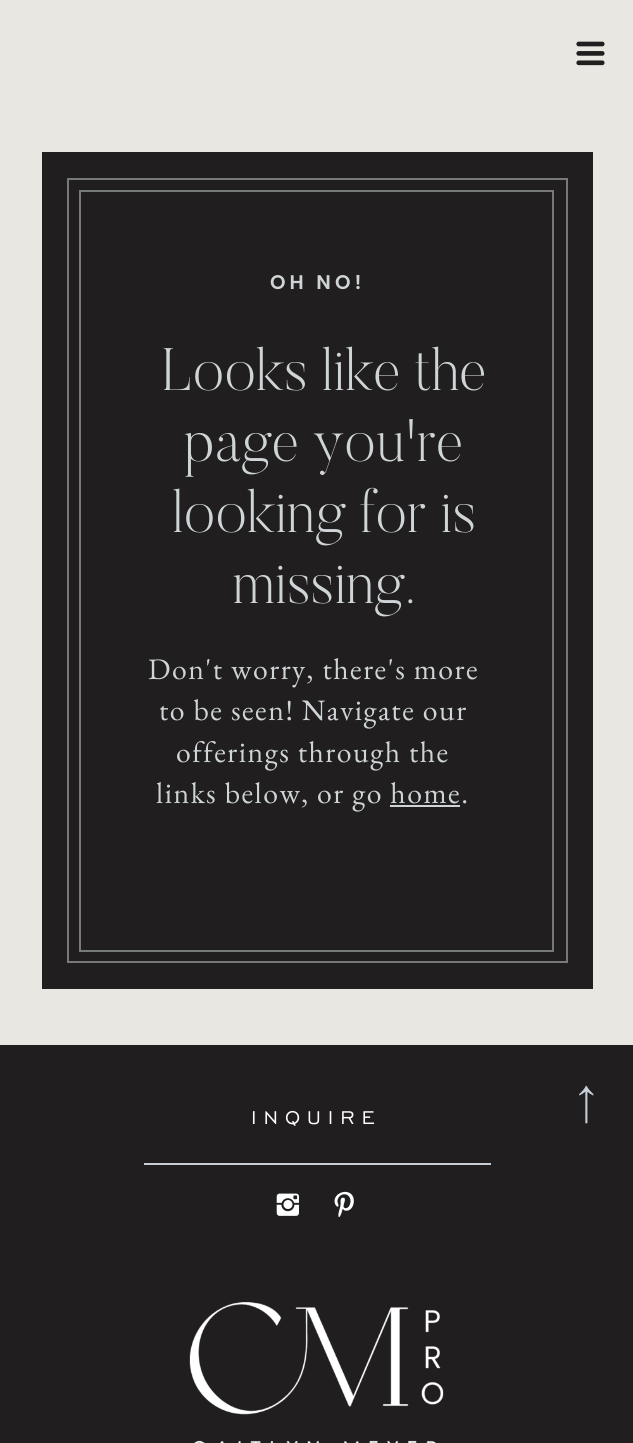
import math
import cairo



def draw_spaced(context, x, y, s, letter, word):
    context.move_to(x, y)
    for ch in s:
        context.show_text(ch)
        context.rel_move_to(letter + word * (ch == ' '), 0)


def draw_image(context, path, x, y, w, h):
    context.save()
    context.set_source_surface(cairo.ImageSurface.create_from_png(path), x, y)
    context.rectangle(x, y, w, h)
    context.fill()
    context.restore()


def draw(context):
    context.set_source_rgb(233 / 255, 231 / 255, 225 / 255)
    context.paint()
    draw_image(context, "images/1.png", 576, 41, 29, 25)
    context.set_source_rgb(32 / 255, 30 / 255, 30 / 255)
    context.rectangle(42, 152, 551, 837)
    context.fill()
    context.rectangle(68, 179, 499, 783)
    context.set_source_rgb(120 / 255, 121 / 255, 122 / 255)
    context.stroke()
    context.rectangle(80, 191, 473, 760)
    context.stroke()
    context.set_source_rgb(207 / 255, 212 / 255, 214 / 255)
    context.rectangle(390, 805, 70, 2)
    context.fill()
    context.set_source_rgb(32 / 255, 30 / 255, 30 / 255)
    context.rectangle(0, 1045, 633, 398)
    context.fill()
    draw_image(context, "images/2.png", 579, 1085, 15, 39)
    context.set_source_rgb(199 / 255, 206 / 255, 214 / 255)
    context.rectangle(144, 1163, 347, 2)
    context.fill()
    draw_image(context, "images/3.png", 276, 1193, 23, 23)
    draw_image(context, "images/4.png", 334, 1191, 20, 26)
    draw_image(context, "images/5.png", 189, 1302, 255, 141)
    context.select_font_face("Poppins SemiBold")
    context.set_font_size(19.75)
    context.set_source_rgb(207 / 255, 212 / 255, 214 / 255)
    draw_spaced(context, 270, 289, "OH NO!", 4, 0)
    context.select_font_face("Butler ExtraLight")
    context.set_font_size(59.5)
    context.move_to(161, 390)
    context.show_text("Looks like the")
    context.move_to(184, 461)
    context.show_text("page you're")
    context.move_to(172, 532)
    context.show_text("looking for is")
    context.move_to(233, 603)
    context.show_text("missing.")
    context.select_font_face("EB Garamond")
    context.set_font_size(29.75)
    draw_spaced(context, 148, 679, "Don't worry, there's more", 1.5, 0)
    draw_spaced(context, 159, 720, "to be seen! Navigate our", 1.5, 0)
    draw_spaced(context, 176, 762, "offerings through the", 1.5, 0)
    draw_spaced(context, 156, 803, "links below, or go home.", 1.5, 0)
    context.select_font_face("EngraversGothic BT")
    context.set_font_size(23.75)
    context.set_source_rgb(1, 1, 1)
    draw_spaced(context, 251, 1124, "INQUIRE", 7, 0)


surface = cairo.ImageSurface(cairo.Format.RGB24, 633, 1443)
context = cairo.Context(surface)
options = cairo.FontOptions()
options.set_hint_metrics(cairo.HintMetrics.OFF)
options.set_hint_style(cairo.HintStyle.NONE)
context.set_font_options(options)
context.set_miter_limit(4)
draw(context)
surface.write_to_png("out.png")
